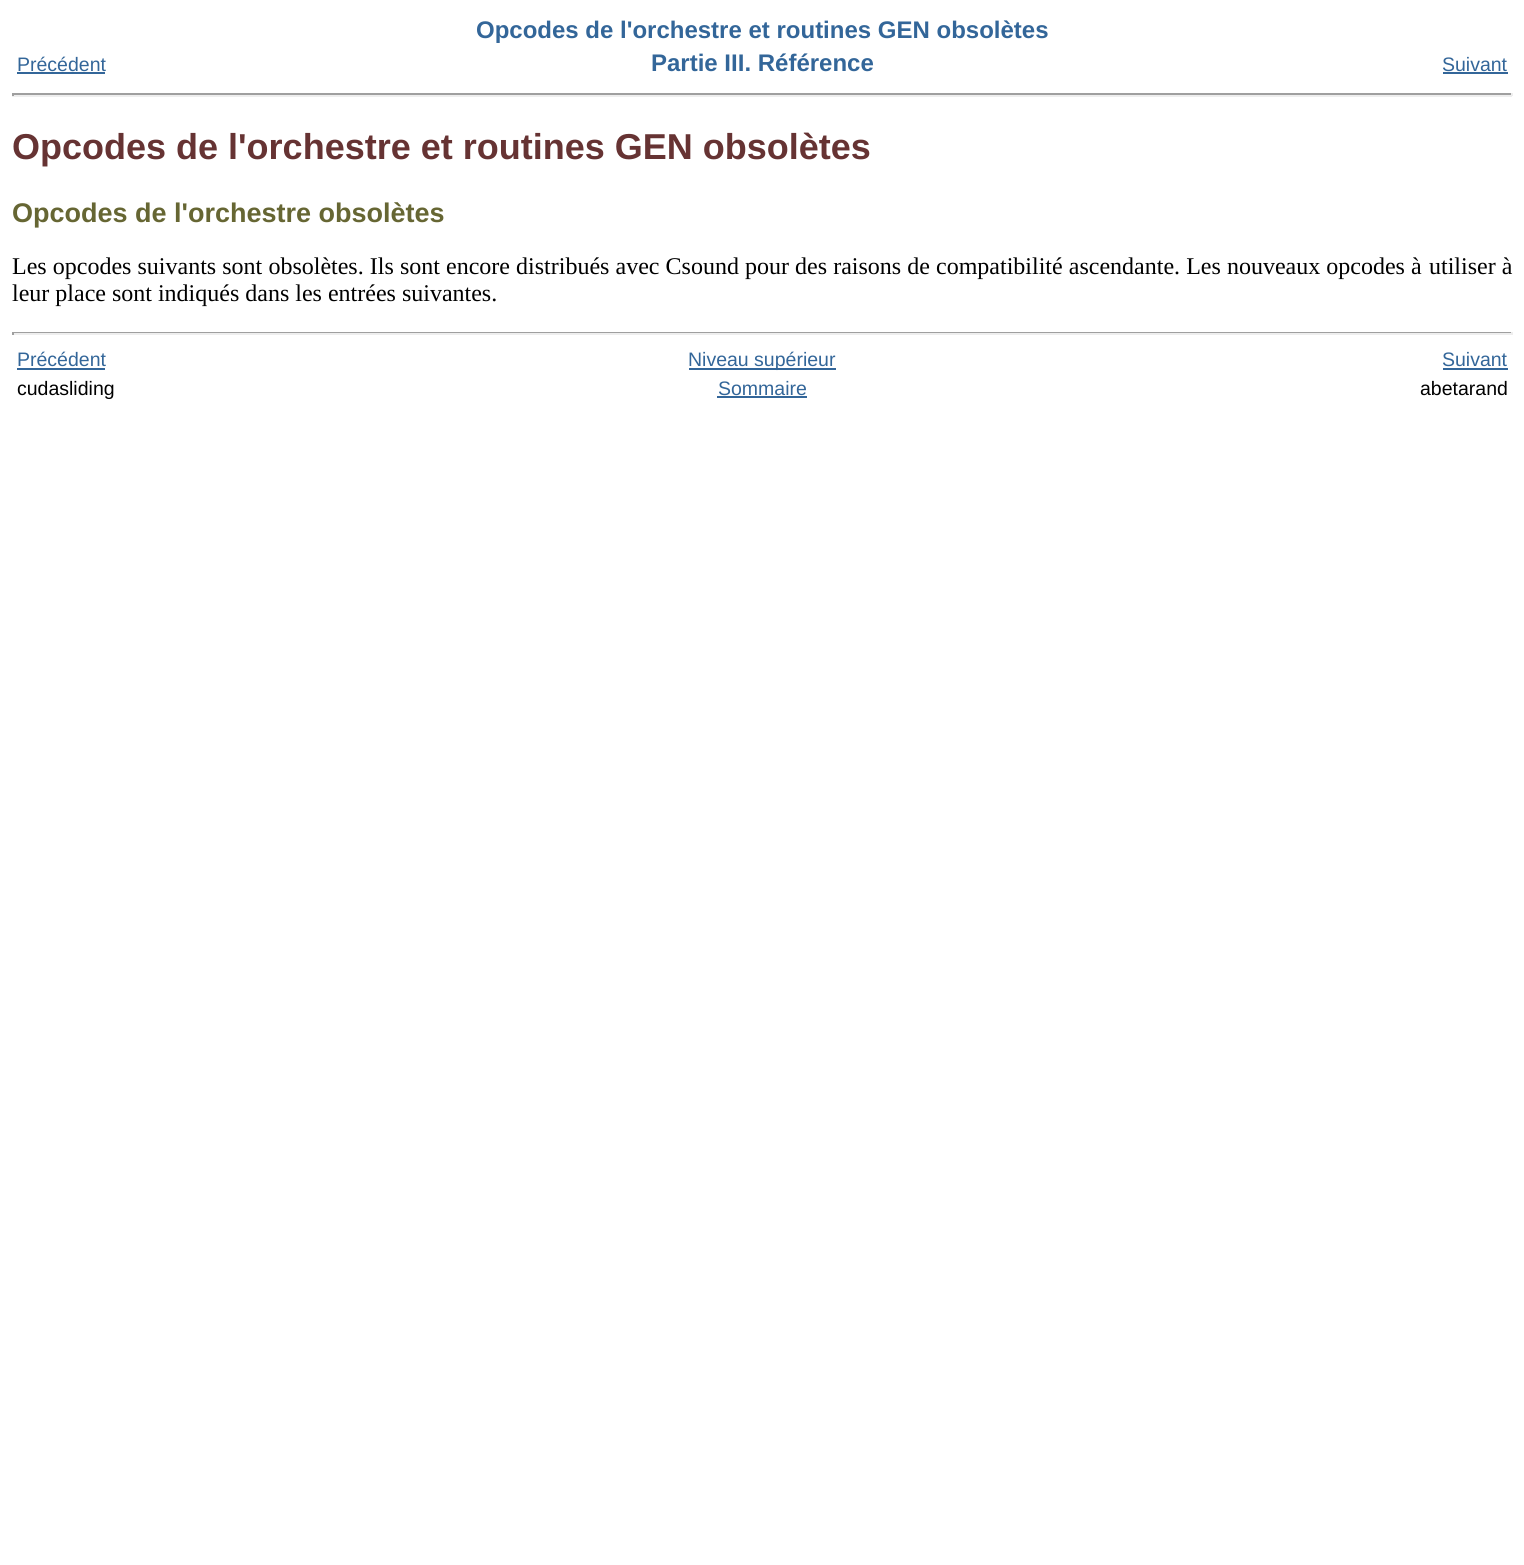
import math
import cairo



def draw_spaced(context, x, y, s, letter, word):
    context.move_to(x, y)
    for ch in s:
        context.show_text(ch)
        context.rel_move_to(letter + word * (ch == ' '), 0)


def draw(context):
    context.set_source_rgb(1, 1, 1)
    context.paint()
    context.set_source_rgb(51 / 255, 102 / 255, 153 / 255)
    context.rectangle(17, 72, 88, 2)
    context.fill()
    context.rectangle(1443, 72, 65, 2)
    context.fill()
    context.set_source_rgb(159 / 255, 159 / 255, 159 / 255)
    context.rectangle(12, 93, 1500, 2)
    context.fill()
    context.set_source_rgb(238 / 255, 238 / 255, 238 / 255)
    context.rectangle(1511, 93, 2, 3)
    context.fill()
    context.rectangle(12, 95, 1500, 2)
    context.fill()
    context.set_source_rgb(159 / 255, 159 / 255, 159 / 255)
    context.rectangle(12, 93, 2, 3)
    context.fill()
    context.rectangle(12, 332, 1500, 1)
    context.fill()
    context.set_source_rgb(238 / 255, 238 / 255, 238 / 255)
    context.rectangle(1511, 332, 2, 3)
    context.fill()
    context.rectangle(12, 333, 1500, 2)
    context.fill()
    context.set_source_rgb(159 / 255, 159 / 255, 159 / 255)
    context.rectangle(12, 332, 2, 3)
    context.fill()
    context.set_source_rgb(51 / 255, 102 / 255, 153 / 255)
    context.rectangle(17, 368, 88, 2)
    context.fill()
    context.rectangle(689, 368, 147, 2)
    context.fill()
    context.rectangle(1443, 368, 65, 2)
    context.fill()
    context.rectangle(717, 396, 90, 2)
    context.fill()
    context.select_font_face("Liberation Sans", cairo.FontSlant.NORMAL, cairo.FontWeight.BOLD)
    context.set_font_size(24)
    context.move_to(476, 38)
    context.show_text("Opcodes de l'orchestre et routines GEN obsolètes")
    context.select_font_face("Liberation Sans")
    context.set_font_size(19.5)
    context.move_to(17, 71)
    context.show_text("Précédent")
    context.select_font_face("Liberation Sans", cairo.FontSlant.NORMAL, cairo.FontWeight.BOLD)
    context.set_font_size(24)
    context.move_to(651, 71)
    context.show_text("Partie III. Référence")
    context.select_font_face("Liberation Sans")
    context.set_font_size(19.5)
    context.move_to(1442, 71)
    context.show_text("Suivant")
    context.select_font_face("Liberation Sans", cairo.FontSlant.NORMAL, cairo.FontWeight.BOLD)
    context.set_font_size(36)
    context.set_source_rgb(102 / 255, 51 / 255, 51 / 255)
    context.move_to(12, 159)
    context.show_text("Opcodes de l'orchestre et routines GEN obsolètes")
    context.set_font_size(27)
    context.set_source_rgb(102 / 255, 102 / 255, 51 / 255)
    context.move_to(12, 222)
    context.show_text("Opcodes de l'orchestre obsolètes")
    context.select_font_face("Liberation Serif")
    context.set_font_size(24)
    context.set_source_rgb(0, 0, 0)
    draw_spaced(context, 12, 274, "Les opcodes suivants sont obsolètes. Ils sont encore distribués avec Csound pour des raisons de compatibilité ascendante. Les nouveaux opcodes à", 0, 0.1)
    context.move_to(1429, 274)
    context.show_text("utiliser à")
    context.move_to(12, 301)
    context.show_text("leur place sont indiqués dans les entrées suivantes.")
    context.select_font_face("Liberation Sans")
    context.set_font_size(19.5)
    context.set_source_rgb(51 / 255, 102 / 255, 153 / 255)
    context.move_to(17, 366)
    context.show_text("Précédent")
    context.move_to(688, 366)
    context.show_text("Niveau supérieur")
    context.move_to(1442, 366)
    context.show_text("Suivant")
    context.set_source_rgb(0, 0, 0)
    context.move_to(17, 395)
    context.show_text("cudasliding")
    context.set_source_rgb(51 / 255, 102 / 255, 153 / 255)
    context.move_to(718, 395)
    context.show_text("Sommaire")
    context.set_source_rgb(0, 0, 0)
    context.move_to(1420, 395)
    context.show_text("abetarand")


surface = cairo.ImageSurface(cairo.Format.RGB24, 1524, 1565)
context = cairo.Context(surface)
options = cairo.FontOptions()
options.set_hint_metrics(cairo.HintMetrics.OFF)
options.set_hint_style(cairo.HintStyle.NONE)
context.set_font_options(options)
context.set_miter_limit(4)
draw(context)
surface.write_to_png("out.png")
